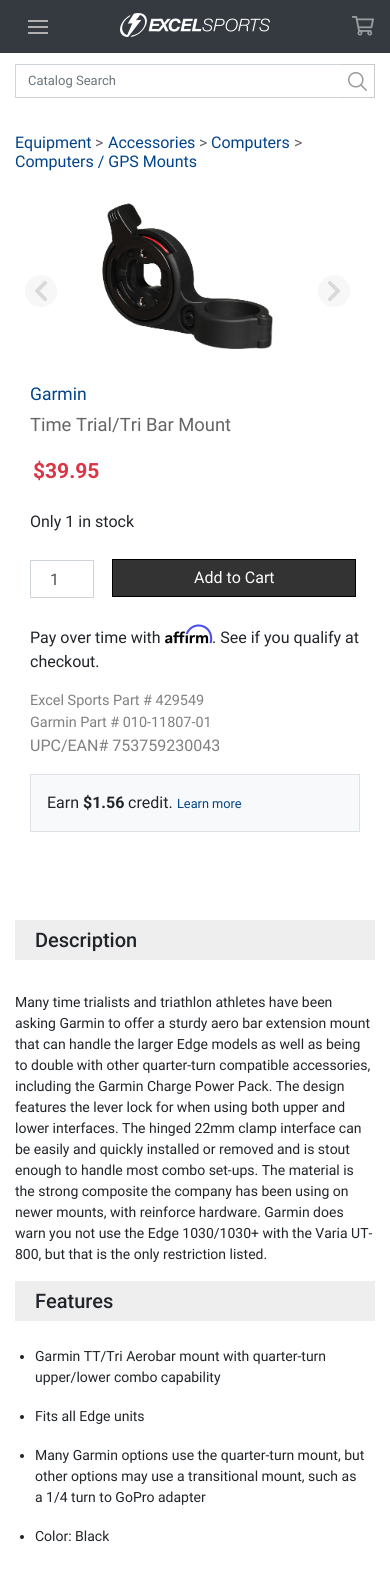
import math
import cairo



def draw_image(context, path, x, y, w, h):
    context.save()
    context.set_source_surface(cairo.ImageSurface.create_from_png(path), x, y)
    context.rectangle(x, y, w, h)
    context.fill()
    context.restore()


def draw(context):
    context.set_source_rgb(1, 1, 1)
    context.paint()
    context.set_source_rgb(52 / 255, 58 / 255, 64 / 255)
    context.rectangle(0, 0, 390, 53)
    context.fill()
    context.set_source_rgb(177 / 255, 177 / 255, 177 / 255)
    context.rectangle(28, 20, 20, 2)
    context.fill()
    context.rectangle(28, 26, 20, 2)
    context.fill()
    context.rectangle(28, 32, 20, 2)
    context.fill()
    draw_image(context, "images/1.png", 120, 13, 150, 24)
    draw_image(context, "images/2.png", 352, 16, 22, 20)
    context.rectangle(15.5, 64.5, 359, 33)
    context.set_source_rgb(206 / 255, 212 / 255, 218 / 255)
    context.set_line_width(1)
    context.stroke()
    context.set_source_rgb(204 / 255, 204 / 255, 204 / 255)
    context.rectangle(341, 64, 34, 1)
    context.fill()
    context.rectangle(374, 64, 1, 34)
    context.fill()
    context.rectangle(341, 97, 34, 1)
    context.fill()
    draw_image(context, "images/3.png", 348, 72, 19, 19)
    context.set_source_rgb(247 / 255, 247 / 255, 247 / 255)
    context.arc(41, 291, 16, 0, 2 * math.pi)
    context.fill()
    draw_image(context, "images/4.png", 35, 281, 12, 20)
    draw_image(context, "images/5.png", 102, 203, 171, 147)
    context.arc(334, 291, 16, 0, 2 * math.pi)
    context.fill()
    draw_image(context, "images/6.png", 328, 281, 12, 20)
    context.rectangle(30.5, 560.5, 63, 37)
    context.set_source_rgb(206 / 255, 212 / 255, 218 / 255)
    context.stroke()
    context.set_source_rgb(51 / 255, 51 / 255, 51 / 255)
    context.rectangle(112.5, 559.5, 243, 37)
    context.fill_preserve()
    context.set_source_rgb(0, 0, 0)
    context.stroke()
    draw_image(context, "images/8.png", 165, 631, 44, 13)
    draw_image(context, "images/7.png", 185, 624, 28, 20)
    context.set_source_rgb(248 / 255, 249 / 255, 250 / 255)
    context.rectangle(30.5, 774.5, 329, 57)
    context.fill_preserve()
    context.set_source_rgb(222 / 255, 226 / 255, 230 / 255)
    context.stroke()
    context.set_source_rgb(238 / 255, 238 / 255, 238 / 255)
    context.rectangle(15, 920, 360, 40)
    context.fill()
    context.rectangle(15, 1281, 360, 40)
    context.fill()
    context.set_source_rgb(33 / 255, 37 / 255, 41 / 255)
    context.arc(22, 1357, 2, 0, 2 * math.pi)
    context.fill()
    context.arc(22, 1417, 2, 0, 2 * math.pi)
    context.fill()
    context.arc(22, 1456, 2, 0, 2 * math.pi)
    context.fill()
    context.arc(22, 1537, 2, 0, 2 * math.pi)
    context.fill()
    context.select_font_face("Roboto")
    context.set_font_size(13)
    context.set_source_rgb(108 / 255, 117 / 255, 125 / 255)
    context.move_to(28, 85)
    context.show_text("Catalog Search")
    context.set_font_size(16)
    context.set_source_rgb(1 / 255, 67 / 255, 138 / 255)
    context.move_to(15, 148)
    context.show_text("Equipment")
    context.set_source_rgb(101 / 255, 101 / 255, 104 / 255)
    context.move_to(95, 148)
    context.show_text(">")
    context.set_source_rgb(1 / 255, 67 / 255, 138 / 255)
    context.move_to(108, 148)
    context.show_text("Accessories")
    context.set_source_rgb(101 / 255, 101 / 255, 104 / 255)
    context.move_to(199, 148)
    context.show_text(">")
    context.set_source_rgb(1 / 255, 67 / 255, 138 / 255)
    context.move_to(211, 148)
    context.show_text("Computers")
    context.set_source_rgb(101 / 255, 101 / 255, 104 / 255)
    context.move_to(294, 148)
    context.show_text(">")
    context.set_source_rgb(1 / 255, 67 / 255, 138 / 255)
    context.move_to(15, 167)
    context.show_text("Computers / GPS Mounts")
    context.set_font_size(17.5)
    context.move_to(30, 400)
    context.show_text("Garmin")
    context.set_font_size(18.4)
    context.set_source_rgb(101 / 255, 101 / 255, 104 / 255)
    context.move_to(30, 431)
    context.show_text("Time Trial/Tri Bar Mount")
    context.select_font_face("Roboto", cairo.FontSlant.NORMAL, cairo.FontWeight.BOLD)
    context.set_font_size(21)
    context.set_source_rgb(220 / 255, 53 / 255, 69 / 255)
    context.move_to(33, 478)
    context.show_text("$39.95")
    context.select_font_face("Roboto")
    context.set_font_size(16)
    context.set_source_rgb(33 / 255, 37 / 255, 41 / 255)
    context.move_to(30, 527)
    context.show_text("Only 1 in stock")
    context.set_source_rgb(73 / 255, 80 / 255, 87 / 255)
    context.move_to(50, 585)
    context.show_text("1")
    context.set_source_rgb(1, 1, 1)
    context.move_to(194, 583)
    context.show_text("Add to Cart")
    context.set_source_rgb(33 / 255, 37 / 255, 41 / 255)
    context.move_to(30, 643)
    context.show_text("Pay over time with")
    context.move_to(212, 643)
    context.show_text(". See if you qualify at")
    context.move_to(30, 667)
    context.show_text("checkout.")
    context.set_font_size(14.4)
    context.set_source_rgb(128 / 255, 128 / 255, 128 / 255)
    context.move_to(30, 705)
    context.show_text("Excel Sports Part # 429549")
    context.move_to(30, 727)
    context.show_text("Garmin Part # 010-11807-01")
    context.set_font_size(16)
    context.move_to(30, 751)
    context.show_text("UPC/EAN# 753759230043")
    context.set_source_rgb(33 / 255, 37 / 255, 41 / 255)
    context.move_to(47, 808)
    context.show_text("Earn")
    context.select_font_face("Roboto", cairo.FontSlant.NORMAL, cairo.FontWeight.BOLD)
    context.move_to(83, 808)
    context.show_text("$1.56")
    context.select_font_face("Roboto")
    context.move_to(128, 808)
    context.show_text("credit.")
    context.set_font_size(12.75)
    context.set_source_rgb(1 / 255, 67 / 255, 138 / 255)
    context.move_to(177, 808)
    context.show_text("Learn more")
    context.select_font_face("Roboto Medium")
    context.set_font_size(20)
    context.set_source_rgb(33 / 255, 37 / 255, 41 / 255)
    context.move_to(35, 947)
    context.show_text("Description")
    context.select_font_face("Roboto")
    context.set_font_size(14)
    context.move_to(15, 1007)
    context.show_text("Many time trialists and triathlon athletes have been")
    context.move_to(15, 1028)
    context.show_text("asking Garmin to offer a sturdy aero bar extension mount")
    context.move_to(15, 1049)
    context.show_text("that can handle the larger Edge models as well as being")
    context.move_to(15, 1070)
    context.show_text("to double with other quarter-turn compatible accessories,")
    context.move_to(15, 1091)
    context.show_text("including the Garmin Charge Power Pack. The design")
    context.move_to(15, 1112)
    context.show_text("features the lever lock for when using both upper and")
    context.move_to(15, 1133)
    context.show_text("lower interfaces. The hinged 22mm clamp interface can")
    context.move_to(15, 1154)
    context.show_text("be easily and quickly installed or removed and is stout")
    context.move_to(15, 1175)
    context.show_text("enough to handle most combo set-ups. The material is")
    context.move_to(15, 1196)
    context.show_text("the strong composite the company has been using on")
    context.move_to(15, 1217)
    context.show_text("newer mounts, with reinforce hardware. Garmin does")
    context.move_to(15, 1238)
    context.show_text("warn you not use the Edge 1030/1030+ with the Varia UT-")
    context.move_to(15, 1259)
    context.show_text("800, but that is the only restriction listed.")
    context.select_font_face("Roboto Medium")
    context.set_font_size(20)
    context.move_to(35, 1308)
    context.show_text("Features")
    context.select_font_face("Roboto")
    context.set_font_size(14)
    context.move_to(35, 1361)
    context.show_text("Garmin TT/Tri Aerobar mount with quarter-turn")
    context.move_to(35, 1382)
    context.show_text("upper/lower combo capability")
    context.move_to(35, 1421)
    context.show_text("Fits all Edge units")
    context.move_to(35, 1460)
    context.show_text("Many Garmin options use the quarter-turn mount, but")
    context.move_to(35, 1481)
    context.show_text("other options may use a transitional mount, such as")
    context.move_to(35, 1502)
    context.show_text("a 1/4 turn to GoPro adapter")
    context.move_to(35, 1541)
    context.show_text("Color: Black")


surface = cairo.ImageSurface(cairo.Format.RGB24, 390, 1570)
context = cairo.Context(surface)
options = cairo.FontOptions()
options.set_hint_metrics(cairo.HintMetrics.OFF)
options.set_hint_style(cairo.HintStyle.NONE)
context.set_font_options(options)
context.set_miter_limit(4)
draw(context)
surface.write_to_png("out.png")
